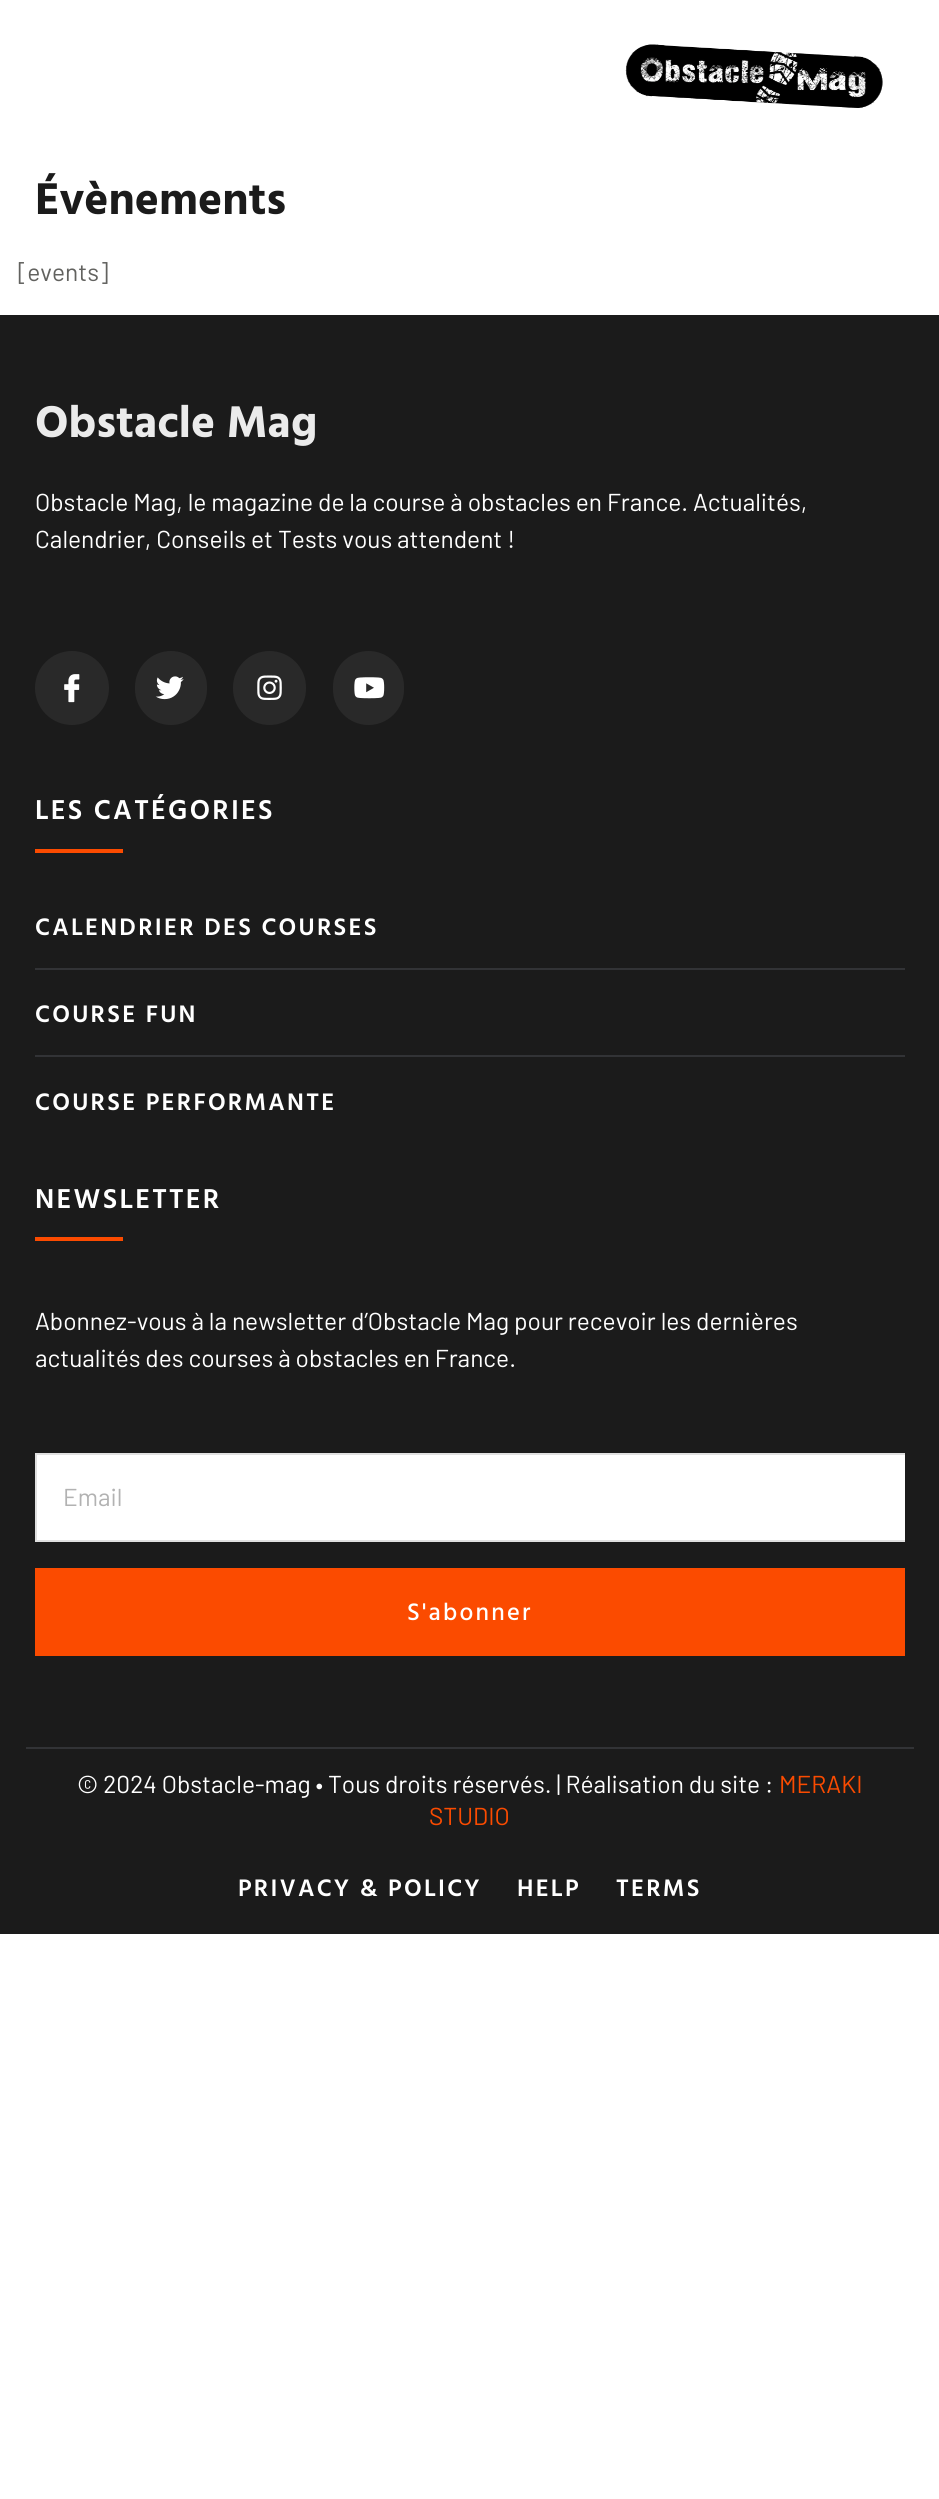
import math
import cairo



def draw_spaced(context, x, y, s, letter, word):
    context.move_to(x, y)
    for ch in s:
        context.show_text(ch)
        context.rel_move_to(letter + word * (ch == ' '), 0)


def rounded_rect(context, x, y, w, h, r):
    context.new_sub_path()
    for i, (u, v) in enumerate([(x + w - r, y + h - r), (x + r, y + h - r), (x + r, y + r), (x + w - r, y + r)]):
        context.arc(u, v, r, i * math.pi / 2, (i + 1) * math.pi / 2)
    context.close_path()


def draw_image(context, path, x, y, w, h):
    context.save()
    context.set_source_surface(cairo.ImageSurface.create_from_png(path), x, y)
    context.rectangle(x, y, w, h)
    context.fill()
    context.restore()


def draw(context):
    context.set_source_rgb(1, 1, 1)
    context.paint()
    draw_image(context, "images/1.png", 625, 44, 258, 64)
    context.set_source_rgb(27 / 255, 27 / 255, 27 / 255)
    context.rectangle(0, 315, 939, 1619)
    context.fill()
    context.set_source_rgb(41 / 255, 41 / 255, 41 / 255)
    context.arc(72, 688, 37, 0, 2 * math.pi)
    context.fill()
    draw_image(context, "images/2.png", 64, 674, 16, 29)
    rounded_rect(context, 135, 651, 72, 74, 36)
    context.fill()
    draw_image(context, "images/3.png", 155, 676, 29, 24)
    rounded_rect(context, 233, 651, 73, 74, 36.5)
    context.fill()
    draw_image(context, "images/4.png", 257, 675, 25, 25)
    rounded_rect(context, 333, 651, 71, 74, 35.5)
    context.fill()
    draw_image(context, "images/5.png", 354, 677, 31, 22)
    context.set_source_rgb(251 / 255, 75 / 255, 0)
    context.rectangle(35, 849, 88, 4)
    context.fill()
    context.set_source_rgb(50 / 255, 51 / 255, 54 / 255)
    context.rectangle(35, 968, 870, 2)
    context.fill()
    context.rectangle(35, 1055, 870, 2)
    context.fill()
    context.set_source_rgb(251 / 255, 75 / 255, 0)
    context.rectangle(35, 1237, 88, 4)
    context.fill()
    context.set_source_rgb(1, 1, 1)
    context.rectangle(37, 1455, 868, 85)
    context.fill()
    context.set_source_rgb(224 / 255, 224 / 255, 224 / 255)
    context.rectangle(35, 1453, 870, 2)
    context.fill()
    context.rectangle(35, 1540, 870, 2)
    context.fill()
    context.rectangle(35, 1453, 2, 89)
    context.fill()
    context.set_source_rgb(251 / 255, 75 / 255, 0)
    context.rectangle(35, 1568, 870, 88)
    context.fill()
    context.set_source_rgb(50 / 255, 51 / 255, 54 / 255)
    context.rectangle(26, 1747, 888, 2)
    context.fill()
    context.select_font_face("Hind Vadodara", cairo.FontSlant.NORMAL, cairo.FontWeight.BOLD)
    context.set_font_size(45.5)
    context.set_source_rgb(27 / 255, 27 / 255, 27 / 255)
    context.move_to(35, 214)
    context.show_text("Évènements")
    context.select_font_face("Barlow")
    context.set_font_size(24.5)
    context.set_source_rgb(98 / 255, 98 / 255, 95 / 255)
    context.move_to(18, 281)
    context.show_text("[events]")
    context.select_font_face("Hind Vadodara", cairo.FontSlant.NORMAL, cairo.FontWeight.BOLD)
    context.set_font_size(45.5)
    context.set_source_rgb(235 / 255, 235 / 255, 235 / 255)
    context.move_to(35, 437)
    context.show_text("Obstacle Mag")
    context.select_font_face("Barlow")
    context.set_font_size(24.5)
    context.set_source_rgb(1, 1, 1)
    context.move_to(35, 511)
    context.show_text("Obstacle Mag, le magazine de la course à obstacles en France. Actualités,")
    context.move_to(35, 548)
    context.show_text("Calendrier, Conseils et Tests vous attendent !")
    context.select_font_face("Hind Vadodara SemiBold")
    context.set_font_size(28)
    draw_spaced(context, 35, 819, "LES CATÉGORIES", 2.25, 0)
    context.set_font_size(24.5)
    draw_spaced(context, 35, 935, "CALENDRIER DES COURSES", 2.25, 0)
    draw_spaced(context, 35, 1022, "COURSE FUN", 2.25, 0)
    draw_spaced(context, 35, 1110, "COURSE PERFORMANTE", 2.25, 0)
    context.set_font_size(28)
    draw_spaced(context, 35, 1208, "NEWSLETTER", 2.25, 0)
    context.select_font_face("Barlow")
    context.set_font_size(24.5)
    context.move_to(35, 1330)
    context.show_text("Abonnez-vous à la newsletter d’Obstacle Mag pour recevoir les dernières")
    context.move_to(35, 1367)
    context.show_text("actualités des courses à obstacles en France.")
    context.set_source_rgb(178 / 255, 178 / 255, 178 / 255)
    context.move_to(63, 1506)
    context.show_text("Email")
    context.select_font_face("Hind Vadodara Medium")
    context.set_source_rgb(1, 1, 1)
    draw_spaced(context, 407, 1620, "S'abonner", 2.25, 0)
    context.select_font_face("Barlow")
    context.move_to(77, 1793)
    context.show_text("© 2024 Obstacle-mag • Tous droits réservés. | Réalisation du site :")
    context.set_source_rgb(251 / 255, 75 / 255, 0)
    context.move_to(779, 1793)
    context.show_text("MERAKI")
    context.move_to(429, 1825)
    context.show_text("STUDIO")
    context.select_font_face("Hind Vadodara SemiBold")
    context.set_source_rgb(1, 1, 1)
    draw_spaced(context, 238, 1896, "PRIVACY & POLICY", 2.25, 0)
    draw_spaced(context, 517, 1896, "HELP", 2.25, 0)
    draw_spaced(context, 616, 1896, "TERMS", 2.25, 0)


surface = cairo.ImageSurface(cairo.Format.RGB24, 939, 2499)
context = cairo.Context(surface)
options = cairo.FontOptions()
options.set_hint_metrics(cairo.HintMetrics.OFF)
options.set_hint_style(cairo.HintStyle.NONE)
context.set_font_options(options)
context.set_miter_limit(4)
draw(context)
surface.write_to_png("out.png")
